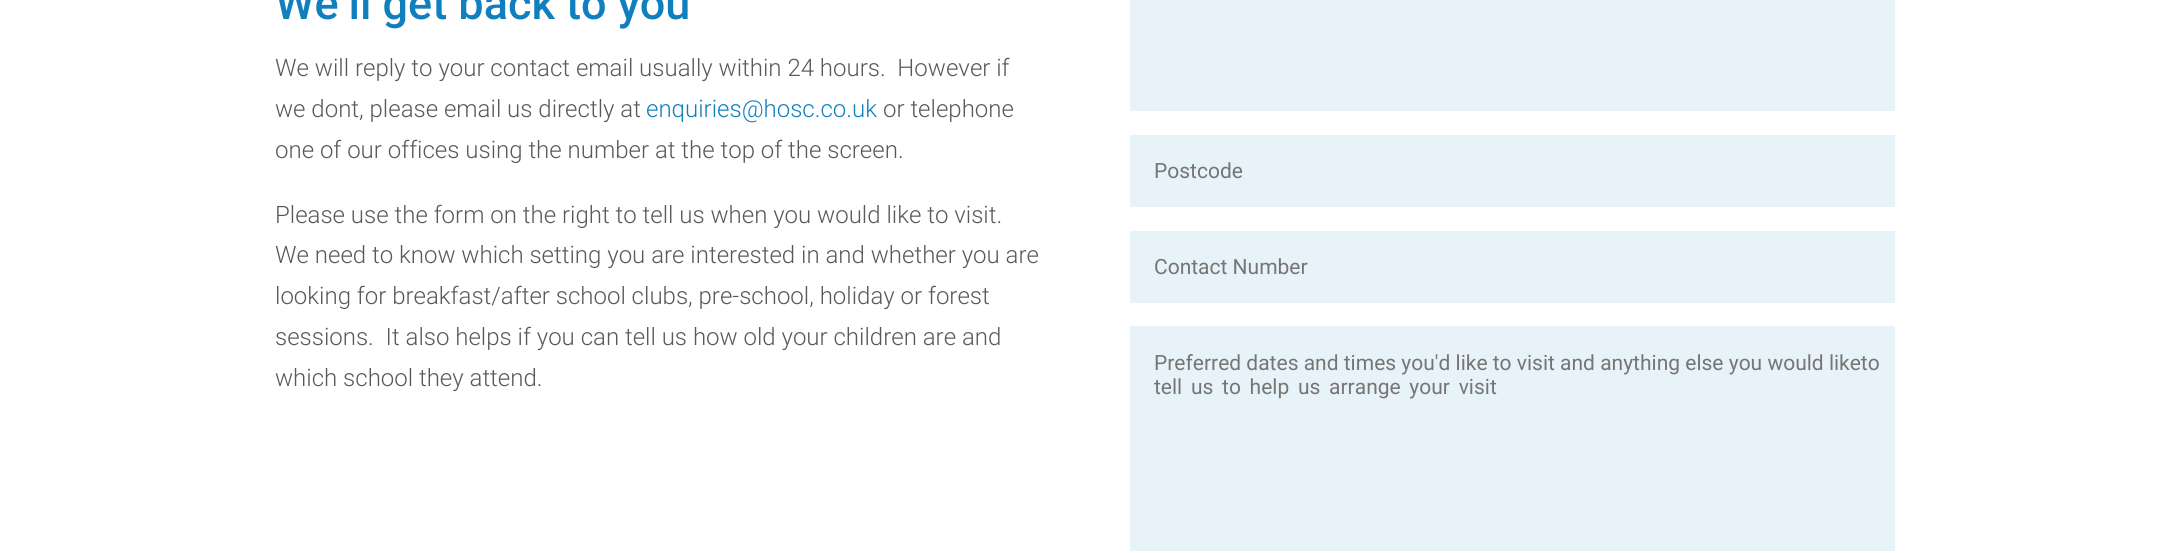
import math
import cairo



def draw_spaced(context, x, y, s, letter, word):
    context.move_to(x, y)
    for ch in s:
        context.show_text(ch)
        context.rel_move_to(letter + word * (ch == ' '), 0)


def draw(context):
    context.set_source_rgb(1, 1, 1)
    context.paint()
    context.set_source_rgb(231 / 255, 242 / 255, 249 / 255)
    context.rectangle(1130, 0, 765, 111)
    context.fill()
    context.rectangle(1130, 135, 765, 72)
    context.fill()
    context.rectangle(1130, 231, 765, 72)
    context.fill()
    context.set_source_rgb(232 / 255, 243 / 255, 249 / 255)
    context.rectangle(1130, 326, 765, 225)
    context.fill()
    context.select_font_face("Roboto Medium")
    context.set_font_size(45)
    context.set_source_rgb(15 / 255, 127 / 255, 190 / 255)
    context.move_to(275, 19)
    context.show_text("We’ll get back to you")
    context.select_font_face("Roboto Light")
    context.set_font_size(24)
    context.set_source_rgb(89 / 255, 89 / 255, 89 / 255)
    context.move_to(275, 76)
    context.show_text("We will reply to your contact email usually within 24 hours.  However if")
    context.move_to(275, 117)
    context.show_text("we dont, please email us directly at")
    context.set_source_rgb(15 / 255, 127 / 255, 190 / 255)
    context.move_to(646, 117)
    context.show_text("enquiries@hosc.co.uk")
    context.set_source_rgb(89 / 255, 89 / 255, 89 / 255)
    context.move_to(883, 117)
    context.show_text("or telephone")
    context.move_to(275, 158)
    context.show_text("one of our offices using the number at the top of the screen.")
    context.move_to(275, 223)
    context.show_text("Please use the form on the right to tell us when you would like to visit.")
    context.move_to(275, 263)
    context.show_text("We need to know which setting you are interested in and whether you are")
    context.move_to(275, 304)
    context.show_text("looking for breakfast/after school clubs, pre-school, holiday or forest")
    context.move_to(275, 345)
    context.show_text("sessions.  It also helps if you can tell us how old your children are and")
    context.move_to(275, 386)
    context.show_text("which school they attend.")
    context.select_font_face("Roboto")
    context.set_font_size(21)
    context.set_source_rgb(117 / 255, 117 / 255, 117 / 255)
    context.move_to(1154, 178)
    context.show_text("Postcode")
    context.move_to(1154, 274)
    context.show_text("Contact Number")
    context.move_to(1154, 370)
    context.show_text("Preferred dates and times you'd like to visit and anything else you would liketo")
    draw_spaced(context, 1154, 394, "tell us to help us arrange your visit", 0, 3.5)


surface = cairo.ImageSurface(cairo.Format.RGB24, 2169, 553)
context = cairo.Context(surface)
options = cairo.FontOptions()
options.set_hint_metrics(cairo.HintMetrics.OFF)
options.set_hint_style(cairo.HintStyle.NONE)
context.set_font_options(options)
context.set_miter_limit(4)
draw(context)
surface.write_to_png("out.png")
